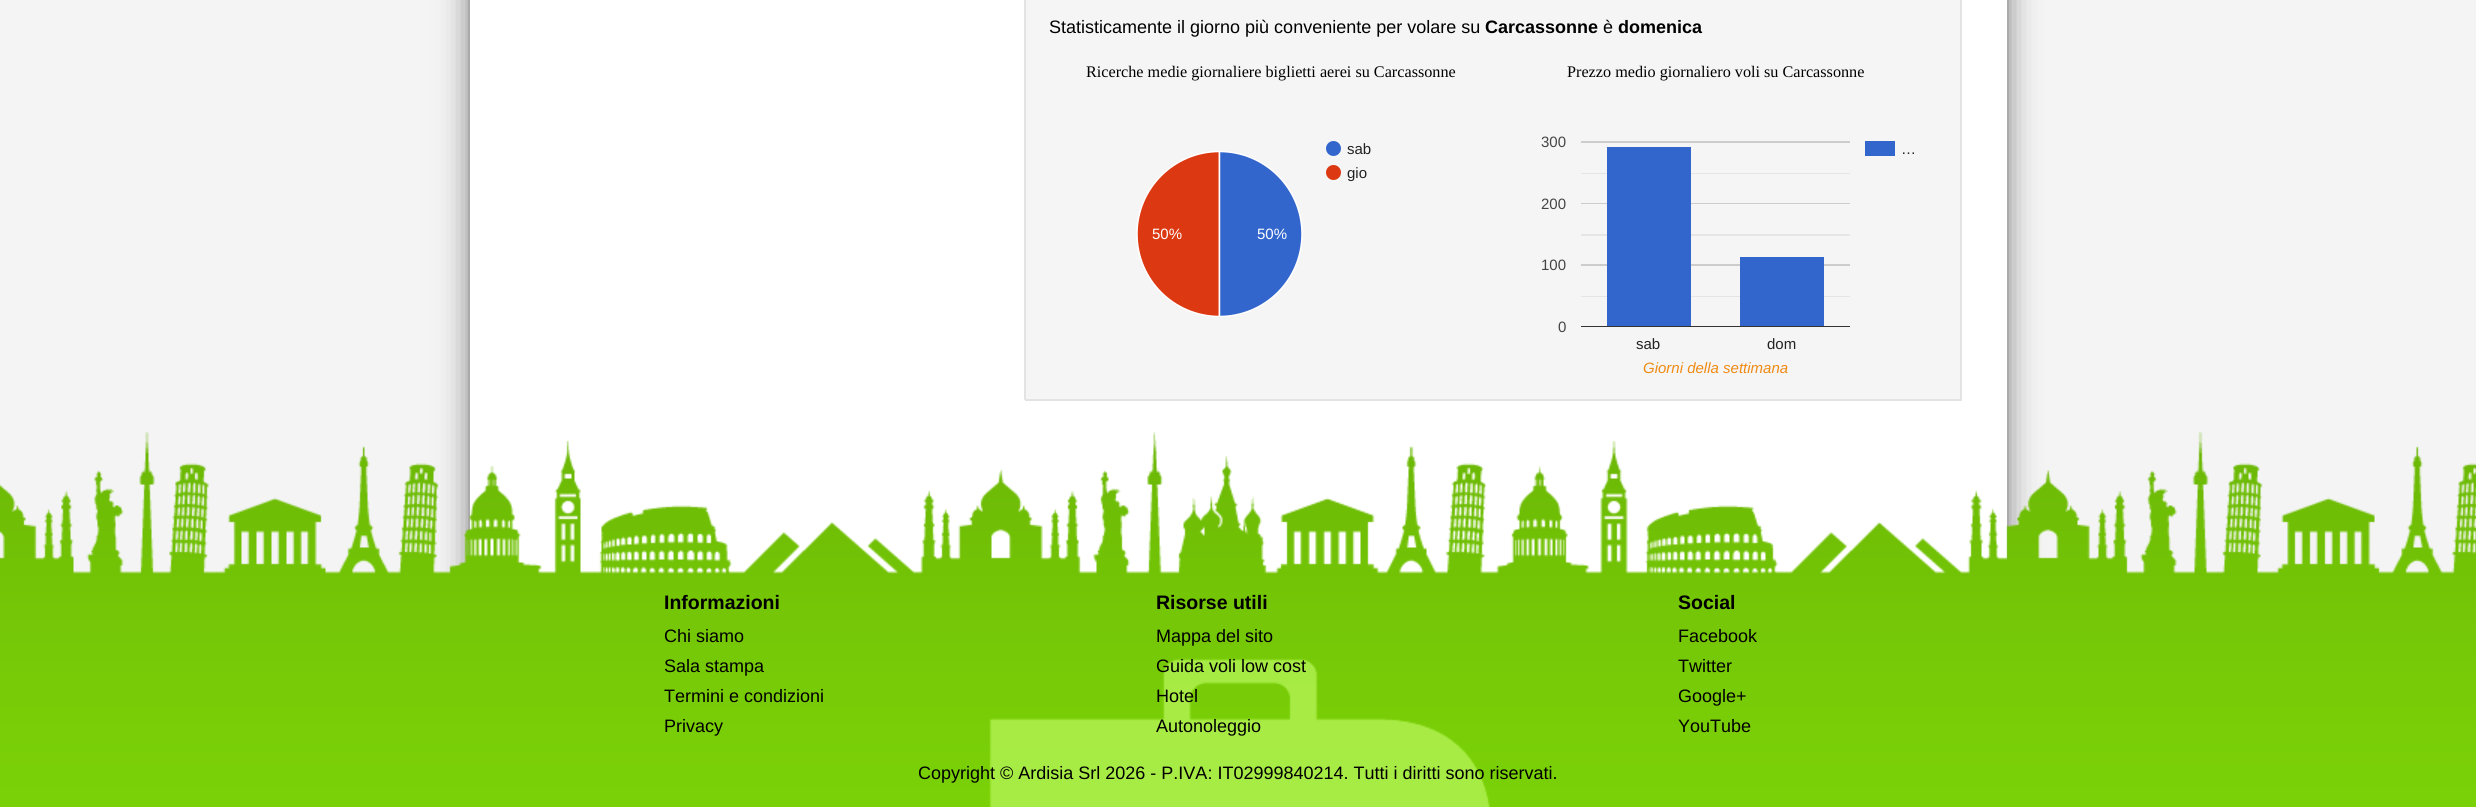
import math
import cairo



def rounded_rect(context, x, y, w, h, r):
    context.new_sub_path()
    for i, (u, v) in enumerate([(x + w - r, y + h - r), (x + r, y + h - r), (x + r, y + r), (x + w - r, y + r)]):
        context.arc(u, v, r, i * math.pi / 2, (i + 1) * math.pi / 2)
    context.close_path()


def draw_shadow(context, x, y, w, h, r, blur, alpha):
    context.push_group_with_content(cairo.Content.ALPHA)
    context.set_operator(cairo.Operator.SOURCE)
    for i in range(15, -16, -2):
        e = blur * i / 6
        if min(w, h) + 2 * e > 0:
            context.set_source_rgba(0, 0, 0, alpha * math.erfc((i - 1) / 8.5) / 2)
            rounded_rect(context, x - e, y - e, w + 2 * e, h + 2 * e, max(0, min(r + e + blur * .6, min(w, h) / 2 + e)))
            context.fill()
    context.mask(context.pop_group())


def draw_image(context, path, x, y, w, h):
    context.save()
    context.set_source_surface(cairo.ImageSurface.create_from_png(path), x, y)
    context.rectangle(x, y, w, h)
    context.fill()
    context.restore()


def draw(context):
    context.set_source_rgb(244 / 255, 244 / 255, 244 / 255)
    context.paint()
    context.set_source_rgb(136 / 255, 136 / 255, 136 / 255)
    draw_shadow(context, 468, -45, 1541, 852, 0, 15, 1)
    context.set_source_rgb(1, 1, 1)
    context.rectangle(470, 0, 1537, 574)
    context.fill()
    context.rectangle(469, -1, 1539, 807)
    context.set_source_rgb(170 / 255, 170 / 255, 170 / 255)
    context.stroke()
    context.set_source_rgb(245 / 255, 245 / 255, 245 / 255)
    context.rectangle(1026, 0, 934, 399)
    context.fill()
    context.set_source_rgb(227 / 255, 227 / 255, 227 / 255)
    context.new_path()
    context.move_to(1962, -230)
    context.line_to(1962, 400)
    context.line_to(1960, 399)
    context.line_to(1960, -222)
    context.close_path()
    context.fill()
    context.rectangle(1025, 399, 937, 2)
    context.fill()
    context.new_path()
    context.move_to(1024, 400)
    context.line_to(1024, -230)
    context.line_to(1026, -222)
    context.line_to(1026, 399)
    context.close_path()
    context.fill()
    draw_image(context, "images/1.png", 1136, 141, 205, 176)
    context.set_source_rgb(204 / 255, 204 / 255, 204 / 255)
    context.rectangle(1581, 141, 269, 2)
    context.fill()
    context.set_source_rgb(51 / 255, 102 / 255, 204 / 255)
    context.rectangle(1865, 141, 30, 15)
    context.fill()
    context.set_source_rgb(204 / 255, 204 / 255, 204 / 255)
    context.rectangle(1581, 203, 269, 1)
    context.fill()
    context.set_source_rgb(229 / 255, 229 / 255, 229 / 255)
    context.rectangle(1581, 173, 269, 1)
    context.fill()
    context.set_source_rgb(204 / 255, 204 / 255, 204 / 255)
    context.rectangle(1581, 264, 269, 2)
    context.fill()
    context.set_source_rgb(229 / 255, 229 / 255, 229 / 255)
    context.rectangle(1581, 234, 269, 2)
    context.fill()
    context.rectangle(1581, 296, 269, 1)
    context.fill()
    context.set_source_rgb(51 / 255, 102 / 255, 204 / 255)
    context.rectangle(1607, 147, 84, 179)
    context.fill()
    context.set_source_rgb(51 / 255, 51 / 255, 51 / 255)
    context.rectangle(1581, 326, 269, 1)
    context.fill()
    context.set_source_rgb(51 / 255, 102 / 255, 204 / 255)
    context.rectangle(1740, 257, 84, 69)
    context.fill()
    draw_image(context, "images/2.png", 0, 432, 2476, 375)
    context.select_font_face("Liberation Sans")
    context.set_font_size(18)
    context.set_source_rgb(0, 0, 0)
    context.move_to(1049, 33)
    context.show_text("Statisticamente il giorno più conveniente per volare su")
    context.select_font_face("Liberation Sans", cairo.FontSlant.NORMAL, cairo.FontWeight.BOLD)
    context.move_to(1485, 33)
    context.show_text("Carcassonne")
    context.select_font_face("Liberation Sans")
    context.move_to(1603, 33)
    context.show_text("è")
    context.select_font_face("Liberation Sans", cairo.FontSlant.NORMAL, cairo.FontWeight.BOLD)
    context.move_to(1618, 33)
    context.show_text("domenica")
    context.select_font_face("Liberation Serif")
    context.set_font_size(16.2)
    context.move_to(1086, 77)
    context.show_text("Ricerche medie giornaliere biglietti aerei su Carcassonne")
    context.select_font_face("Liberation Sans")
    context.set_font_size(15)
    context.set_source_rgb(34 / 255, 34 / 255, 34 / 255)
    context.move_to(1347, 154)
    context.show_text("sab")
    context.move_to(1347, 178)
    context.show_text("gio")
    context.set_source_rgb(1, 1, 1)
    context.move_to(1152, 239)
    context.show_text("50%")
    context.move_to(1257, 239)
    context.show_text("50%")
    context.select_font_face("Liberation Serif")
    context.set_font_size(16.2)
    context.set_source_rgb(0, 0, 0)
    context.move_to(1567, 77)
    context.show_text("Prezzo medio giornaliero voli su Carcassonne")
    context.select_font_face("Liberation Sans")
    context.set_font_size(15)
    context.set_source_rgb(68 / 255, 68 / 255, 68 / 255)
    context.move_to(1541, 147)
    context.show_text("300")
    context.set_source_rgb(34 / 255, 34 / 255, 34 / 255)
    context.move_to(1901, 154)
    context.show_text("…")
    context.set_source_rgb(68 / 255, 68 / 255, 68 / 255)
    context.move_to(1541, 209)
    context.show_text("200")
    context.move_to(1541, 270)
    context.show_text("100")
    context.move_to(1558, 332)
    context.show_text("0")
    context.set_source_rgb(34 / 255, 34 / 255, 34 / 255)
    context.move_to(1636, 349)
    context.show_text("sab")
    context.move_to(1767, 349)
    context.show_text("dom")
    context.select_font_face("Liberation Sans", cairo.FontSlant.ITALIC)
    context.set_source_rgb(239 / 255, 138 / 255, 19 / 255)
    context.move_to(1643, 373)
    context.show_text("Giorni della settimana")
    context.select_font_face("Liberation Sans", cairo.FontSlant.NORMAL, cairo.FontWeight.BOLD)
    context.set_font_size(19.5)
    context.set_source_rgb(0, 0, 0)
    context.move_to(664, 609)
    context.show_text("Informazioni")
    context.select_font_face("Liberation Sans")
    context.set_font_size(18)
    context.move_to(664, 642)
    context.show_text("Chi siamo")
    context.move_to(664, 672)
    context.show_text("Sala stampa")
    context.move_to(664, 702)
    context.show_text("Termini e condizioni")
    context.move_to(664, 732)
    context.show_text("Privacy")
    context.select_font_face("Liberation Sans", cairo.FontSlant.NORMAL, cairo.FontWeight.BOLD)
    context.set_font_size(19.5)
    context.move_to(1156, 609)
    context.show_text("Risorse utili")
    context.select_font_face("Liberation Sans")
    context.set_font_size(18)
    context.move_to(1156, 642)
    context.show_text("Mappa del sito")
    context.move_to(1156, 672)
    context.show_text("Guida voli low cost")
    context.move_to(1156, 702)
    context.show_text("Hotel")
    context.move_to(1156, 732)
    context.show_text("Autonoleggio")
    context.select_font_face("Liberation Sans", cairo.FontSlant.NORMAL, cairo.FontWeight.BOLD)
    context.set_font_size(19.5)
    context.move_to(1678, 609)
    context.show_text("Social")
    context.select_font_face("Liberation Sans")
    context.set_font_size(18)
    context.move_to(1678, 642)
    context.show_text("Facebook")
    context.move_to(1678, 672)
    context.show_text("Twitter")
    context.move_to(1678, 702)
    context.show_text("Google+")
    context.move_to(1678, 732)
    context.show_text("YouTube")
    context.move_to(918, 779)
    context.show_text("Copyright © Ardisia Srl 2026 - P.IVA: IT02999840214. Tutti i diritti sono riservati.")


surface = cairo.ImageSurface(cairo.Format.RGB24, 2476, 807)
context = cairo.Context(surface)
options = cairo.FontOptions()
options.set_hint_metrics(cairo.HintMetrics.OFF)
options.set_hint_style(cairo.HintStyle.NONE)
context.set_font_options(options)
context.set_miter_limit(4)
draw(context)
surface.write_to_png("out.png")
